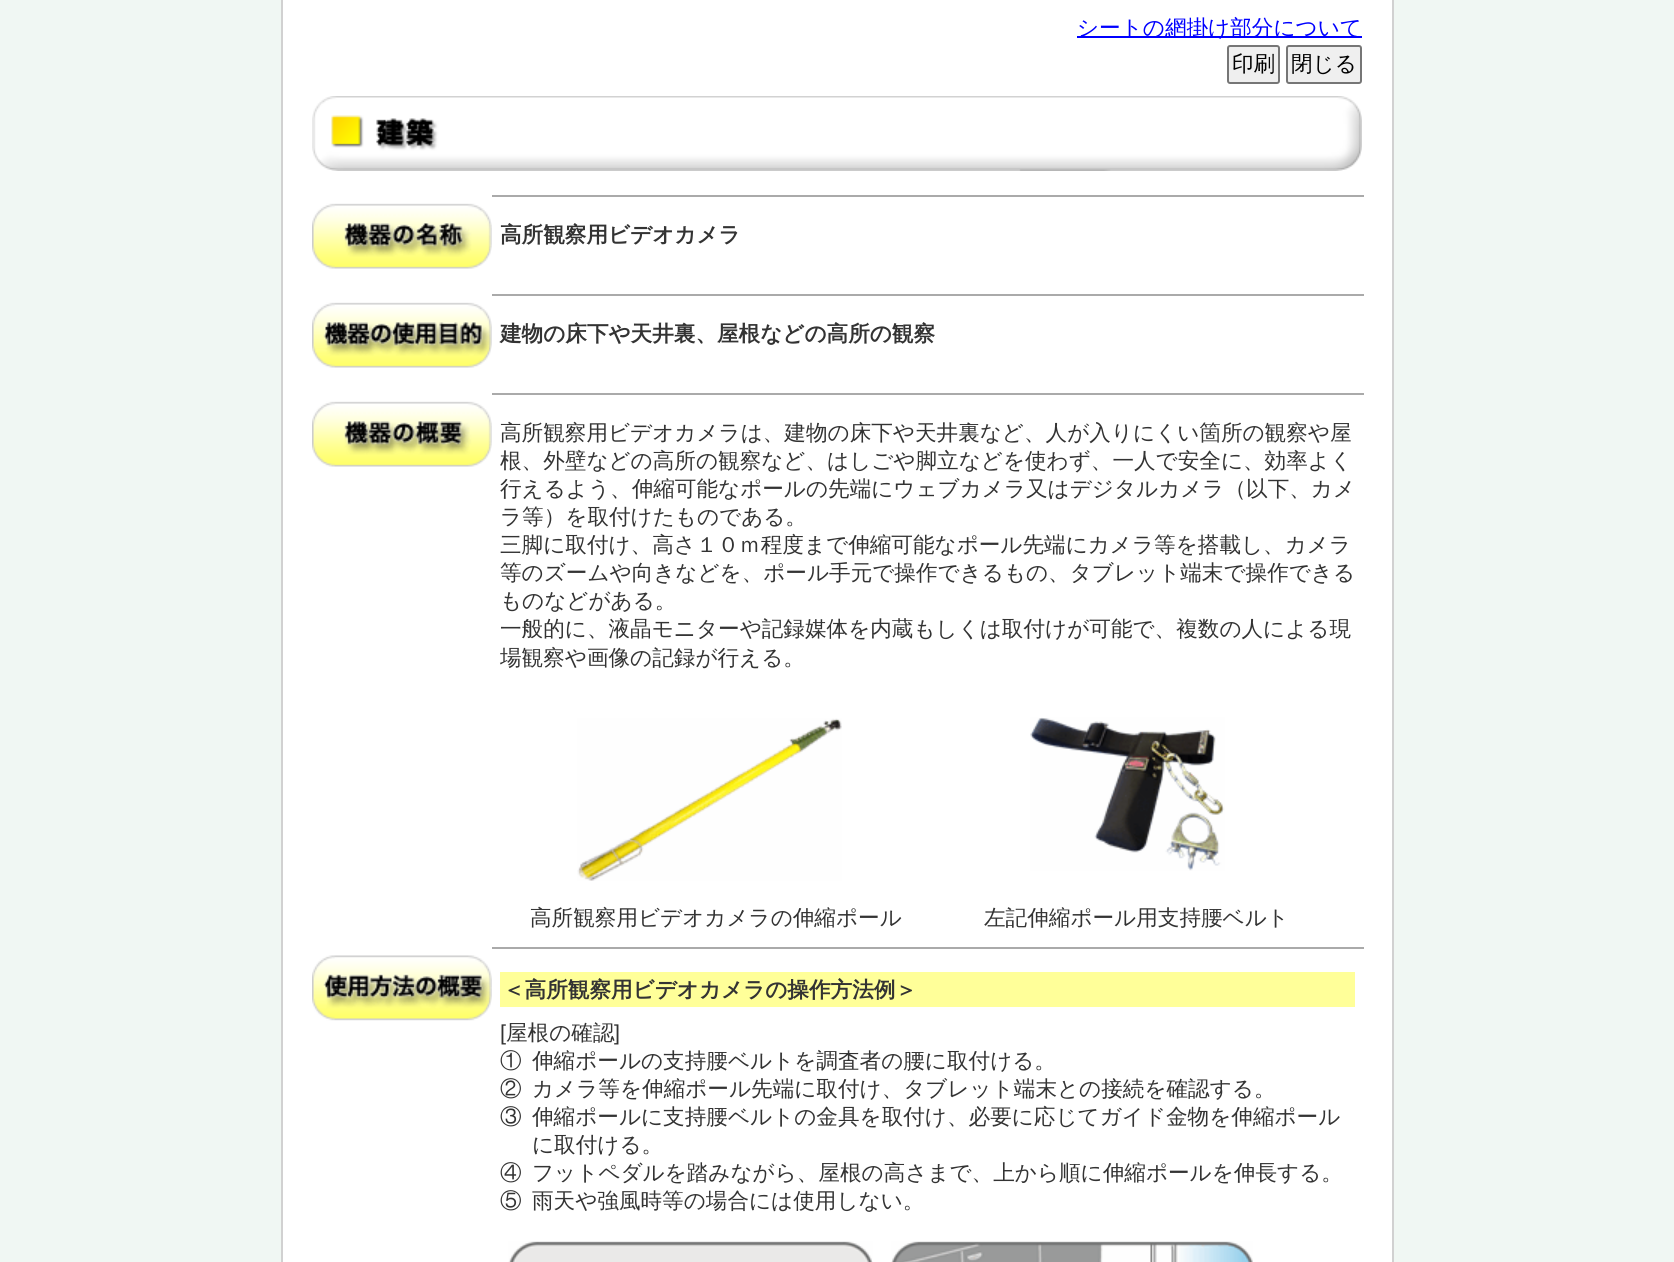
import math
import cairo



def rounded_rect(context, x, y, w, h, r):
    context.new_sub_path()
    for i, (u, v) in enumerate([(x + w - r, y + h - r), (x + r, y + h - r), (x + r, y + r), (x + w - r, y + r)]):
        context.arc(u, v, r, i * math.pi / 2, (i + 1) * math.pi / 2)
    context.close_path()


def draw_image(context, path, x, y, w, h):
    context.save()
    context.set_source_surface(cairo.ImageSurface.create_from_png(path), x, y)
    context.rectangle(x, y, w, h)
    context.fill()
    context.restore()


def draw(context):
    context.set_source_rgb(240 / 255, 247 / 255, 243 / 255)
    context.paint()
    context.set_source_rgb(1, 1, 1)
    context.rectangle(283, 0, 1109, 1262)
    context.fill()
    context.set_source_rgb(209 / 255, 209 / 255, 209 / 255)
    context.rectangle(1392, 0, 2, 1262)
    context.fill()
    context.rectangle(281, 0, 2, 1262)
    context.fill()
    context.set_source_rgb(0, 0, 1)
    context.rectangle(1077, 36, 285, 2)
    context.fill()
    context.set_source_rgb(239 / 255, 239 / 255, 239 / 255)
    rounded_rect(context, 1228, 46, 51, 37, 2)
    context.fill_preserve()
    context.set_source_rgb(118 / 255, 118 / 255, 118 / 255)
    context.stroke()
    context.set_source_rgb(239 / 255, 239 / 255, 239 / 255)
    rounded_rect(context, 1287, 46, 74, 37, 2)
    context.fill_preserve()
    context.set_source_rgb(118 / 255, 118 / 255, 118 / 255)
    context.stroke()
    draw_image(context, "images/1.png", 312, 96, 1050, 75)
    draw_image(context, "images/2.png", 312, 203, 180, 66)
    context.set_source_rgb(170 / 255, 170 / 255, 170 / 255)
    context.rectangle(492, 195, 872, 2)
    context.fill()
    draw_image(context, "images/3.png", 312, 302, 180, 66)
    context.rectangle(492, 294, 872, 2)
    context.fill()
    draw_image(context, "images/4.png", 312, 401, 180, 66)
    context.rectangle(492, 393, 872, 2)
    context.fill()
    draw_image(context, "images/5.png", 577, 718, 265, 163)
    draw_image(context, "images/6.png", 1030, 717, 195, 154)
    draw_image(context, "images/7.png", 312, 955, 180, 66)
    context.rectangle(492, 947, 872, 2)
    context.fill()
    context.set_source_rgb(1, 1, 153 / 255)
    context.rectangle(500, 972, 855, 35)
    context.fill()
    draw_image(context, "images/8.png", 508, 1241, 365, 21)
    draw_image(context, "images/9.png", 891, 1241, 362, 21)
    context.select_font_face("WenQuanYi Zen Hei Medium")
    context.set_font_size(21.6)
    context.set_source_rgb(0, 0, 1)
    context.move_to(1077, 35)
    context.show_text("シートの網掛け部分について")
    context.set_source_rgb(0, 0, 0)
    context.move_to(1232, 71)
    context.show_text("印刷")
    context.move_to(1291, 71)
    context.show_text("閉じる")
    context.select_font_face("WenQuanYi Zen Hei", cairo.FontSlant.NORMAL, cairo.FontWeight.BOLD)
    context.set_source_rgb(51 / 255, 51 / 255, 51 / 255)
    context.move_to(500, 242)
    context.show_text("高所観察用ビデオカメラ")
    context.move_to(500, 341)
    context.show_text("建物の床下や天井裏、屋根などの高所の観察")
    context.select_font_face("WenQuanYi Zen Hei Medium")
    context.move_to(500, 440)
    context.show_text("高所観察用ビデオカメラは、建物の床下や天井裏など、人が入りにくい箇所の観察や屋")
    context.move_to(500, 468)
    context.show_text("根、外壁などの高所の観察など、はしごや脚立などを使わず、一人で安全に、効率よく")
    context.move_to(500, 496)
    context.show_text("行えるよう、伸縮可能なポールの先端にウェブカメラ又はデジタルカメラ（以下、カメ")
    context.move_to(500, 524)
    context.show_text("ラ等）を取付けたものである。")
    context.move_to(500, 552)
    context.show_text("三脚に取付け、高さ１０ｍ程度まで伸縮可能なポール先端にカメラ等を搭載し、カメラ")
    context.move_to(500, 580)
    context.show_text("等のズームや向きなどを、ポール手元で操作できるもの、タブレット端末で操作できる")
    context.move_to(500, 608)
    context.show_text("ものなどがある。")
    context.move_to(500, 636)
    context.show_text("一般的に、液晶モニターや記録媒体を内蔵もしくは取付けが可能で、複数の人による現")
    context.move_to(500, 665)
    context.show_text("場観察や画像の記録が行える。")
    context.move_to(530, 925)
    context.show_text("高所観察用ビデオカメラの伸縮ポール")
    context.move_to(984, 925)
    context.show_text("左記伸縮ポール用支持腰ベルト")
    context.select_font_face("WenQuanYi Zen Hei", cairo.FontSlant.NORMAL, cairo.FontWeight.BOLD)
    context.move_to(503, 997)
    context.show_text("＜高所観察用ビデオカメラの操作方法例＞")
    context.select_font_face("Liberation Sans")
    context.move_to(500, 1040)
    context.show_text("[")
    context.select_font_face("WenQuanYi Zen Hei Medium")
    context.move_to(506, 1040)
    context.show_text("屋根の確認")
    context.select_font_face("Liberation Sans")
    context.move_to(614, 1040)
    context.show_text("]")
    context.select_font_face("WenQuanYi Zen Hei Medium")
    context.move_to(500, 1068)
    context.show_text("①")
    context.move_to(532, 1068)
    context.show_text("伸縮ポールの支持腰ベルトを調査者の腰に取付ける。")
    context.move_to(500, 1096)
    context.show_text("②")
    context.move_to(532, 1096)
    context.show_text("カメラ等を伸縮ポール先端に取付け、タブレット端末との接続を確認する。")
    context.move_to(500, 1124)
    context.show_text("③")
    context.move_to(532, 1124)
    context.show_text("伸縮ポールに支持腰ベルトの金具を取付け、必要に応じてガイド金物を伸縮ポール")
    context.move_to(532, 1152)
    context.show_text("に取付ける。")
    context.move_to(500, 1180)
    context.show_text("④")
    context.move_to(532, 1180)
    context.show_text("フットペダルを踏みながら、屋根の高さまで、上から順に伸縮ポールを伸長する。")
    context.move_to(500, 1208)
    context.show_text("⑤")
    context.move_to(532, 1208)
    context.show_text("雨天や強風時等の場合には使用しない。")


surface = cairo.ImageSurface(cairo.Format.RGB24, 1674, 1262)
context = cairo.Context(surface)
options = cairo.FontOptions()
options.set_hint_metrics(cairo.HintMetrics.OFF)
options.set_hint_style(cairo.HintStyle.NONE)
context.set_font_options(options)
context.set_miter_limit(4)
draw(context)
surface.write_to_png("out.png")
